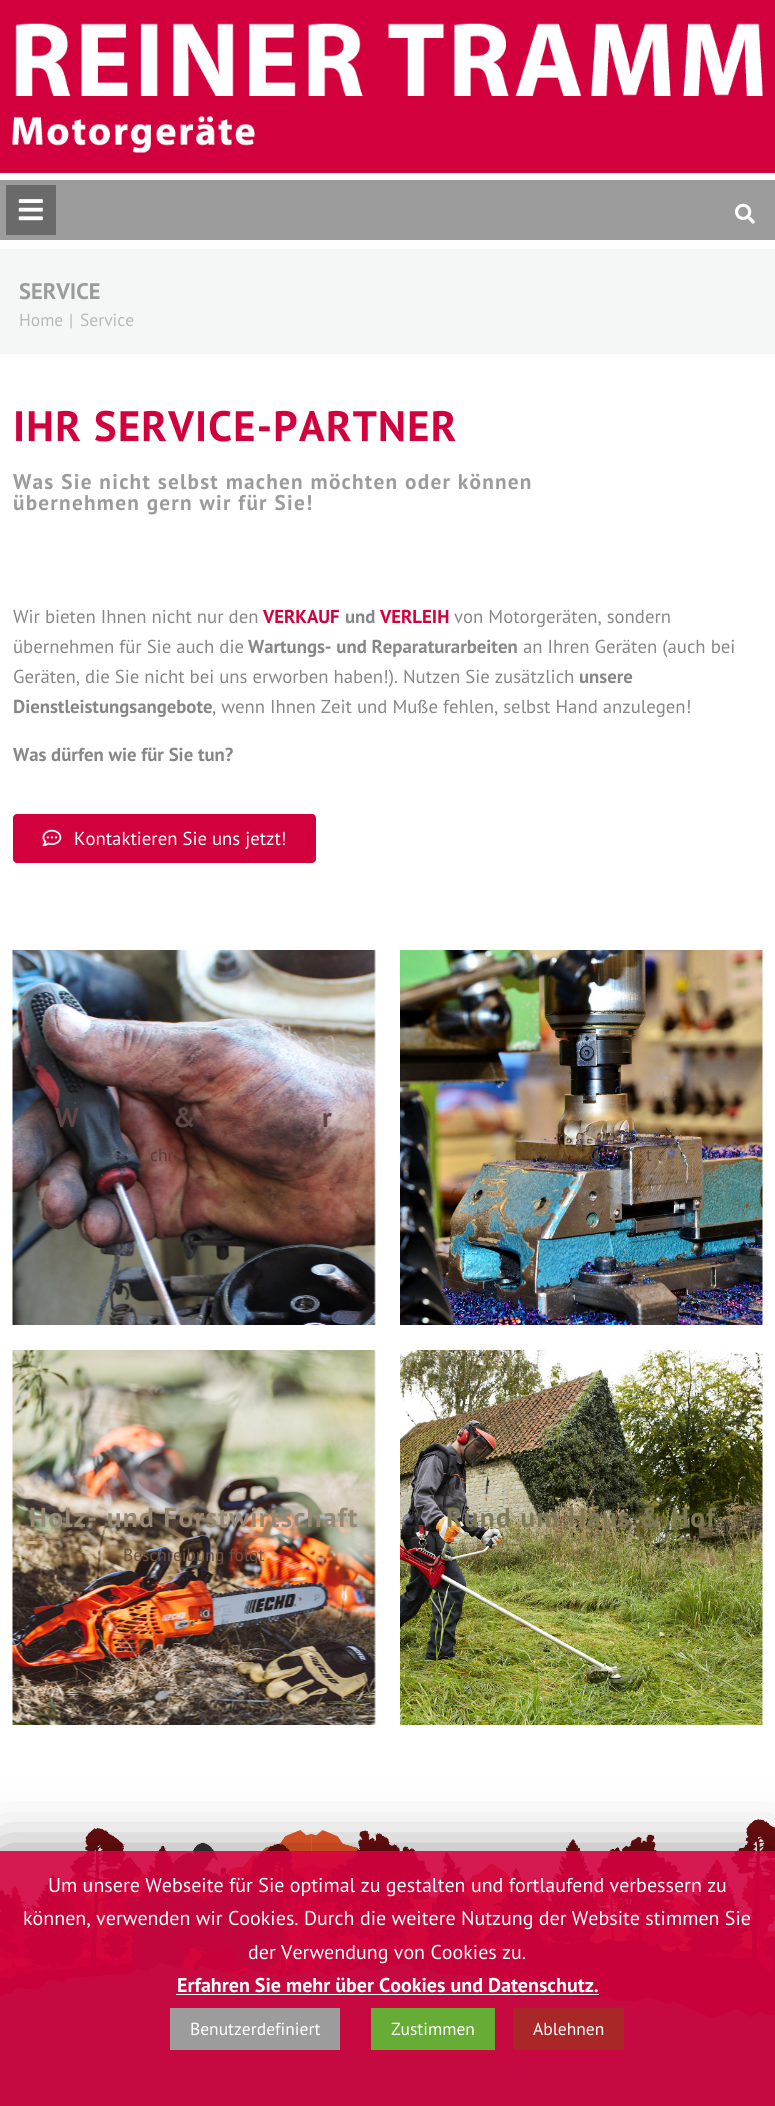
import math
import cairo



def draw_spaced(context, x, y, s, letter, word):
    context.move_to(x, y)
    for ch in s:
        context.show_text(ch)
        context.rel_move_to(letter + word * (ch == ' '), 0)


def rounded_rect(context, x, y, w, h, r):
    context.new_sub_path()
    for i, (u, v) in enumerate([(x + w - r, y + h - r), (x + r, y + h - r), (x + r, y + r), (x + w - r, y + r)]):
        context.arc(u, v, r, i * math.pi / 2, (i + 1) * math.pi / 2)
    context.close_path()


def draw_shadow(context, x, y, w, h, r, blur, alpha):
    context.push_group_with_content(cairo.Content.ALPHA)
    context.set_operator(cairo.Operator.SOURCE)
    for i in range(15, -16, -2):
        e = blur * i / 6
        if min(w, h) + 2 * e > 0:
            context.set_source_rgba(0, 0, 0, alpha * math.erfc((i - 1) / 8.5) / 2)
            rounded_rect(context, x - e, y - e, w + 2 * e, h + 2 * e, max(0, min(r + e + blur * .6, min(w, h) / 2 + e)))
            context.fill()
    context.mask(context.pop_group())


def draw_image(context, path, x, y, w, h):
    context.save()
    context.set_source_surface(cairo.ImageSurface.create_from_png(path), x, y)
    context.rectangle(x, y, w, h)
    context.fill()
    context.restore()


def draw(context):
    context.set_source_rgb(1, 1, 1)
    context.paint()
    context.set_source_rgb(211 / 255, 0, 62 / 255)
    context.rectangle(0, 0, 775, 173)
    context.fill()
    draw_image(context, "images/1.png", 12, 23, 751, 130)
    context.set_source_rgb(156 / 255, 156 / 255, 156 / 255)
    context.rectangle(0, 180, 775, 60)
    context.fill()
    context.set_source_rgb(106 / 255, 106 / 255, 106 / 255)
    context.rectangle(6, 185, 50, 50)
    context.fill()
    draw_image(context, "images/2.png", 18, 199, 25, 22)
    draw_image(context, "images/3.png", 735, 203, 20, 21)
    context.set_source_rgb(245 / 255, 246 / 255, 246 / 255)
    context.rectangle(0, 249, 775, 105)
    context.fill()
    context.set_source_rgb(211 / 255, 0, 62 / 255)
    rounded_rect(context, 13, 814, 303, 49, 4)
    context.fill()
    draw_image(context, "images/4.png", 42, 829, 20, 18)
    draw_image(context, "images/5.png", 12, 950, 364, 375)
    draw_image(context, "images/6.png", 400, 950, 363, 375)
    draw_image(context, "images/7.png", 12, 1350, 364, 375)
    draw_image(context, "images/8.png", 400, 1350, 363, 375)
    draw_image(context, "images/9.png", 0, 1818, 775, 232)
    context.set_source_rgb(90 / 255, 90 / 255, 90 / 255)
    context.rectangle(0, 2050, 775, 56)
    context.fill()
    context.save()
    context.set_fill_rule(cairo.FillRule.EVEN_ODD)
    context.new_path()
    context.move_to(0, 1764)
    context.line_to(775, 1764)
    context.line_to(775, 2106)
    context.line_to(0, 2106)
    context.close_path()
    context.move_to(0, 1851)
    context.line_to(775, 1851)
    context.line_to(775, 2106)
    context.line_to(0, 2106)
    context.close_path()
    context.clip()
    context.set_source_rgb(0, 0, 0)
    draw_shadow(context, 0, 1858, 775, 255, 0, 31, 0.5)
    context.restore()
    context.set_source_rgba(211 / 255, 0, 62 / 255, 0.9)
    context.rectangle(0, 1851, 775, 255)
    context.fill()
    context.set_source_rgb(1, 1, 1)
    context.rectangle(176, 1994, 423, 1)
    context.fill()
    context.set_source_rgb(156 / 255, 156 / 255, 156 / 255)
    context.rectangle(170, 2008, 170, 42)
    context.fill()
    context.set_source_rgb(103 / 255, 173 / 255, 53 / 255)
    context.rectangle(371, 2008, 124, 42)
    context.fill()
    context.set_source_rgb(170 / 255, 39 / 255, 39 / 255)
    context.rectangle(513, 2008, 111, 42)
    context.fill()
    context.select_font_face("PT Sans", cairo.FontSlant.NORMAL, cairo.FontWeight.BOLD)
    context.set_font_size(22.5)
    context.set_source_rgb(156 / 255, 156 / 255, 156 / 255)
    context.move_to(19, 299)
    context.show_text("SERVICE")
    context.select_font_face("PT Sans")
    context.set_font_size(17.5)
    context.set_source_rgb(184 / 255, 184 / 255, 184 / 255)
    context.move_to(19, 326)
    context.show_text("Home")
    context.move_to(69, 326)
    context.show_text("|")
    context.move_to(80, 326)
    context.show_text("Service")
    context.select_font_face("PT Sans", cairo.FontSlant.NORMAL, cairo.FontWeight.BOLD)
    context.set_font_size(42.5)
    context.set_source_rgb(211 / 255, 0, 62 / 255)
    draw_spaced(context, 13, 441, "IHR SERVICE-PARTNER", 1.25, 0)
    context.set_font_size(21.25)
    context.set_source_rgb(156 / 255, 156 / 255, 156 / 255)
    draw_spaced(context, 13, 489, "Was Sie nicht selbst machen möchten oder können", 1.25, 0)
    draw_spaced(context, 13, 510, "übernehmen gern wir für Sie!", 1.25, 0)
    context.select_font_face("PT Sans")
    context.set_font_size(18.75)
    context.set_source_rgb(134 / 255, 135 / 255, 134 / 255)
    context.move_to(13, 623)
    context.show_text("Wir bieten Ihnen nicht nur den")
    context.select_font_face("PT Sans", cairo.FontSlant.NORMAL, cairo.FontWeight.BOLD)
    context.set_source_rgb(211 / 255, 0, 62 / 255)
    context.move_to(263, 623)
    context.show_text("VERKAUF")
    context.set_source_rgb(134 / 255, 135 / 255, 134 / 255)
    context.move_to(345, 623)
    context.show_text("und")
    context.set_source_rgb(211 / 255, 0, 62 / 255)
    context.move_to(380, 623)
    context.show_text("VERLEIH")
    context.select_font_face("PT Sans")
    context.set_source_rgb(134 / 255, 135 / 255, 134 / 255)
    context.move_to(454, 623)
    context.show_text("von Motorgeräten, sondern")
    context.move_to(13, 653)
    context.show_text("übernehmen für Sie auch die")
    context.select_font_face("PT Sans", cairo.FontSlant.NORMAL, cairo.FontWeight.BOLD)
    context.move_to(248, 653)
    context.show_text("Wartungs- und Reparaturarbeiten")
    context.select_font_face("PT Sans")
    context.move_to(523, 653)
    context.show_text("an Ihren Geräten (auch bei")
    context.move_to(13, 683)
    context.show_text("Geräten, die Sie nicht bei uns erworben haben!). Nutzen Sie zusätzlich")
    context.select_font_face("PT Sans", cairo.FontSlant.NORMAL, cairo.FontWeight.BOLD)
    context.move_to(579, 683)
    context.show_text("unsere")
    context.move_to(13, 713)
    context.show_text("Dienstleistungsangebote")
    context.select_font_face("PT Sans")
    context.move_to(212, 713)
    context.show_text(", wenn Ihnen Zeit und Muße fehlen, selbst Hand anzulegen!")
    context.select_font_face("PT Sans", cairo.FontSlant.NORMAL, cairo.FontWeight.BOLD)
    context.move_to(13, 761)
    context.show_text("Was dürfen wie für Sie tun?")
    context.select_font_face("PT Sans")
    context.set_source_rgb(1, 1, 1)
    context.move_to(74, 845)
    context.show_text("Kontaktieren Sie uns jetzt!")
    context.select_font_face("PT Sans", cairo.FontSlant.NORMAL, cairo.FontWeight.BOLD)
    context.set_font_size(27.5)
    context.set_source_rgb(96 / 255, 69 / 255, 70 / 255)
    draw_spaced(context, 55, 1127, "W", 1.25, 0)
    draw_spaced(context, 173, 1127, "&", 1.25, 0)
    draw_spaced(context, 322, 1127, "r", 1.25, 0)
    context.select_font_face("PT Sans")
    context.set_font_size(17.5)
    context.set_source_rgb(89 / 255, 58 / 255, 53 / 255)
    context.move_to(150, 1161)
    context.show_text("chr")
    context.set_source_rgb(95 / 255, 74 / 255, 55 / 255)
    context.move_to(622, 1161)
    context.show_text("o")
    context.move_to(646, 1161)
    context.show_text("t")
    context.select_font_face("PT Sans", cairo.FontSlant.NORMAL, cairo.FontWeight.BOLD)
    context.set_font_size(27.5)
    context.set_source_rgb(150 / 255, 136 / 255, 117 / 255)
    draw_spaced(context, 29, 1527, "Holz- und Forstwirtschaft", 1.25, 0)
    context.select_font_face("PT Sans")
    context.set_font_size(17.5)
    context.set_source_rgb(110 / 255, 82 / 255, 66 / 255)
    context.move_to(123, 1561)
    context.show_text("Beschreibung folgt")
    context.select_font_face("PT Sans", cairo.FontSlant.NORMAL, cairo.FontWeight.BOLD)
    context.set_font_size(27.5)
    context.set_source_rgb(127 / 255, 121 / 255, 88 / 255)
    draw_spaced(context, 446, 1527, "Rund um Haus & Hof", 1.25, 0)
    context.select_font_face("PT Sans")
    context.set_font_size(20)
    context.set_source_rgb(1, 1, 1)
    context.move_to(48, 1892)
    context.show_text("Um unsere Webseite für Sie optimal zu gestalten und fortlaufend verbessern zu")
    context.move_to(23, 1925)
    context.show_text("können, verwenden wir Cookies. Durch die weitere Nutzung der Website stimmen Sie")
    context.move_to(248, 1959)
    context.show_text("der Verwendung von Cookies zu.")
    context.select_font_face("PT Sans", cairo.FontSlant.NORMAL, cairo.FontWeight.BOLD)
    context.move_to(177, 1992)
    context.show_text("Erfahren Sie mehr über Cookies und Datenschutz.")
    context.select_font_face("PT Sans")
    context.set_font_size(17.5)
    context.move_to(190, 2035)
    context.show_text("Benutzerdefiniert")
    context.move_to(391, 2035)
    context.show_text("Zustimmen")
    context.move_to(533, 2035)
    context.show_text("Ablehnen")


surface = cairo.ImageSurface(cairo.Format.RGB24, 775, 2106)
context = cairo.Context(surface)
options = cairo.FontOptions()
options.set_hint_metrics(cairo.HintMetrics.OFF)
options.set_hint_style(cairo.HintStyle.NONE)
context.set_font_options(options)
context.set_miter_limit(4)
draw(context)
surface.write_to_png("out.png")
